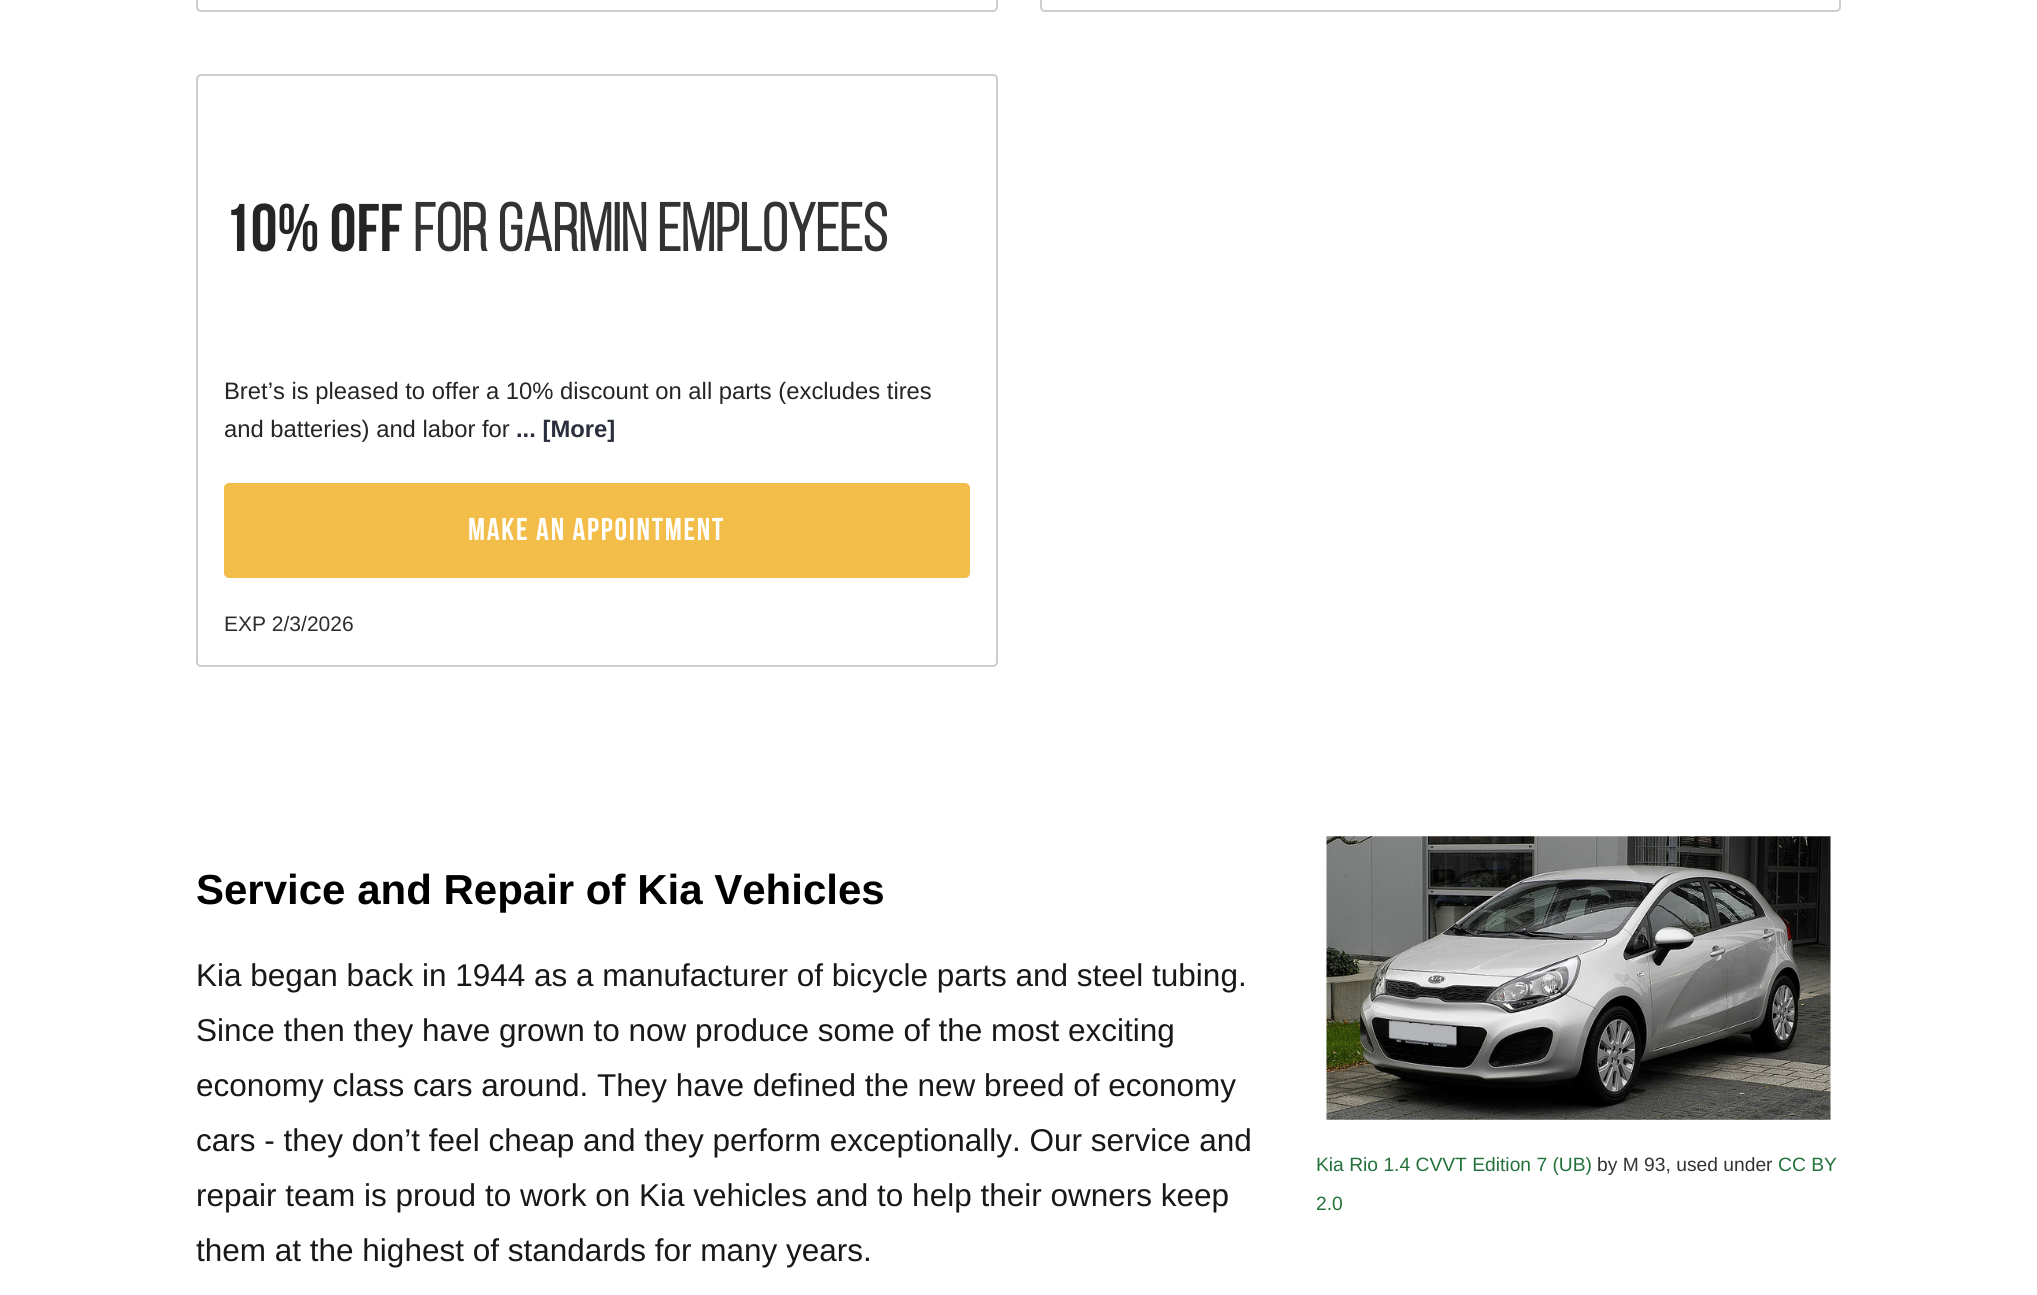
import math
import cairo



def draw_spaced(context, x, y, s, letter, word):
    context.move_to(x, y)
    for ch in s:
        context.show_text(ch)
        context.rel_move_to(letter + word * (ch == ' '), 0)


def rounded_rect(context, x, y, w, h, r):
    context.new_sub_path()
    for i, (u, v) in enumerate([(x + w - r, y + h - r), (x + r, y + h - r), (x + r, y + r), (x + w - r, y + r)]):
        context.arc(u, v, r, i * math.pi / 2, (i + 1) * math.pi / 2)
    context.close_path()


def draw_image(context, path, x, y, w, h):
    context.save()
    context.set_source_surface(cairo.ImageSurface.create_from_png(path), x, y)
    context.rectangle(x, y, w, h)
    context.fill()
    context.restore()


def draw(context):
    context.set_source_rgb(1, 1, 1)
    context.paint()
    rounded_rect(context, 197, -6, 800, 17, 4)
    context.set_source_rgb(201 / 255, 206 / 255, 207 / 255)
    context.stroke()
    rounded_rect(context, 1041, -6, 799, 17, 4)
    context.stroke()
    rounded_rect(context, 197, 75, 800, 591, 4)
    context.stroke()
    context.set_source_rgb(242 / 255, 189 / 255, 73 / 255)
    rounded_rect(context, 224, 483, 746, 95, 5)
    context.fill()
    draw_image(context, "images/1.png", 1326, 836, 505, 284)
    context.select_font_face("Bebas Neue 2", cairo.FontSlant.NORMAL, cairo.FontWeight.BOLD)
    context.set_font_size(67.25)
    context.set_source_rgb(37 / 255, 37 / 255, 37 / 255)
    context.move_to(224, 251)
    context.show_text("10% OFF")
    context.select_font_face("Bebas Neue", cairo.FontSlant.NORMAL, cairo.FontWeight.BOLD)
    context.set_source_rgb(51 / 255, 51 / 255, 51 / 255)
    context.move_to(413, 251)
    context.show_text("FOR GARMIN EMPLOYEES")
    context.select_font_face("Liberation Sans")
    context.set_font_size(23.8)
    context.set_source_rgb(37 / 255, 37 / 255, 37 / 255)
    context.move_to(224, 399)
    context.show_text("Bret’s is pleased to offer a 10% discount on all parts (excludes tires")
    context.move_to(224, 437)
    context.show_text("and batteries) and labor for")
    context.select_font_face("Liberation Sans", cairo.FontSlant.NORMAL, cairo.FontWeight.BOLD)
    context.set_source_rgb(42 / 255, 46 / 255, 61 / 255)
    context.move_to(516, 437)
    context.show_text("... [More]")
    context.select_font_face("Bebas Neue 2", cairo.FontSlant.NORMAL, cairo.FontWeight.BOLD)
    context.set_font_size(31.5)
    context.set_source_rgb(1, 1, 1)
    draw_spaced(context, 468, 540, "MAKE AN APPOINTMENT", 1.75, 0)
    context.select_font_face("Liberation Sans")
    context.set_font_size(21)
    context.set_source_rgb(45 / 255, 45 / 255, 45 / 255)
    context.move_to(224, 631)
    context.show_text("EXP 2/3/2026")
    context.select_font_face("Liberation Sans", cairo.FontSlant.NORMAL, cairo.FontWeight.BOLD)
    context.set_font_size(42)
    context.set_source_rgb(0, 0, 0)
    context.move_to(196, 904)
    context.show_text("Service and Repair of Kia Vehicles")
    context.select_font_face("Liberation Sans")
    context.set_font_size(31.5)
    context.set_source_rgb(24 / 255, 24 / 255, 24 / 255)
    context.move_to(196, 986)
    context.show_text("Kia began back in 1944 as a manufacturer of bicycle parts and steel tubing.")
    context.move_to(196, 1041)
    context.show_text("Since then they have grown to now produce some of the most exciting")
    context.move_to(196, 1096)
    context.show_text("economy class cars around. They have defined the new breed of economy")
    context.move_to(196, 1151)
    context.show_text("cars - they don’t feel cheap and they perform exceptionally. Our service and")
    context.move_to(196, 1206)
    context.show_text("repair team is proud to work on Kia vehicles and to help their owners keep")
    context.move_to(196, 1261)
    context.show_text("them at the highest of standards for many years.")
    context.set_font_size(19.25)
    context.set_source_rgb(35 / 255, 113 / 255, 59 / 255)
    context.move_to(1316, 1171)
    context.show_text("Kia Rio 1.4 CVVT Edition 7 (UB)")
    context.set_source_rgb(51 / 255, 51 / 255, 51 / 255)
    context.move_to(1597, 1171)
    context.show_text("by M 93, used under")
    context.set_source_rgb(35 / 255, 113 / 255, 59 / 255)
    context.move_to(1778, 1171)
    context.show_text("CC BY")
    context.move_to(1316, 1210)
    context.show_text("2.0")


surface = cairo.ImageSurface(cairo.Format.RGB24, 2037, 1295)
context = cairo.Context(surface)
options = cairo.FontOptions()
options.set_hint_metrics(cairo.HintMetrics.OFF)
options.set_hint_style(cairo.HintStyle.NONE)
context.set_font_options(options)
context.set_miter_limit(4)
draw(context)
surface.write_to_png("out.png")
